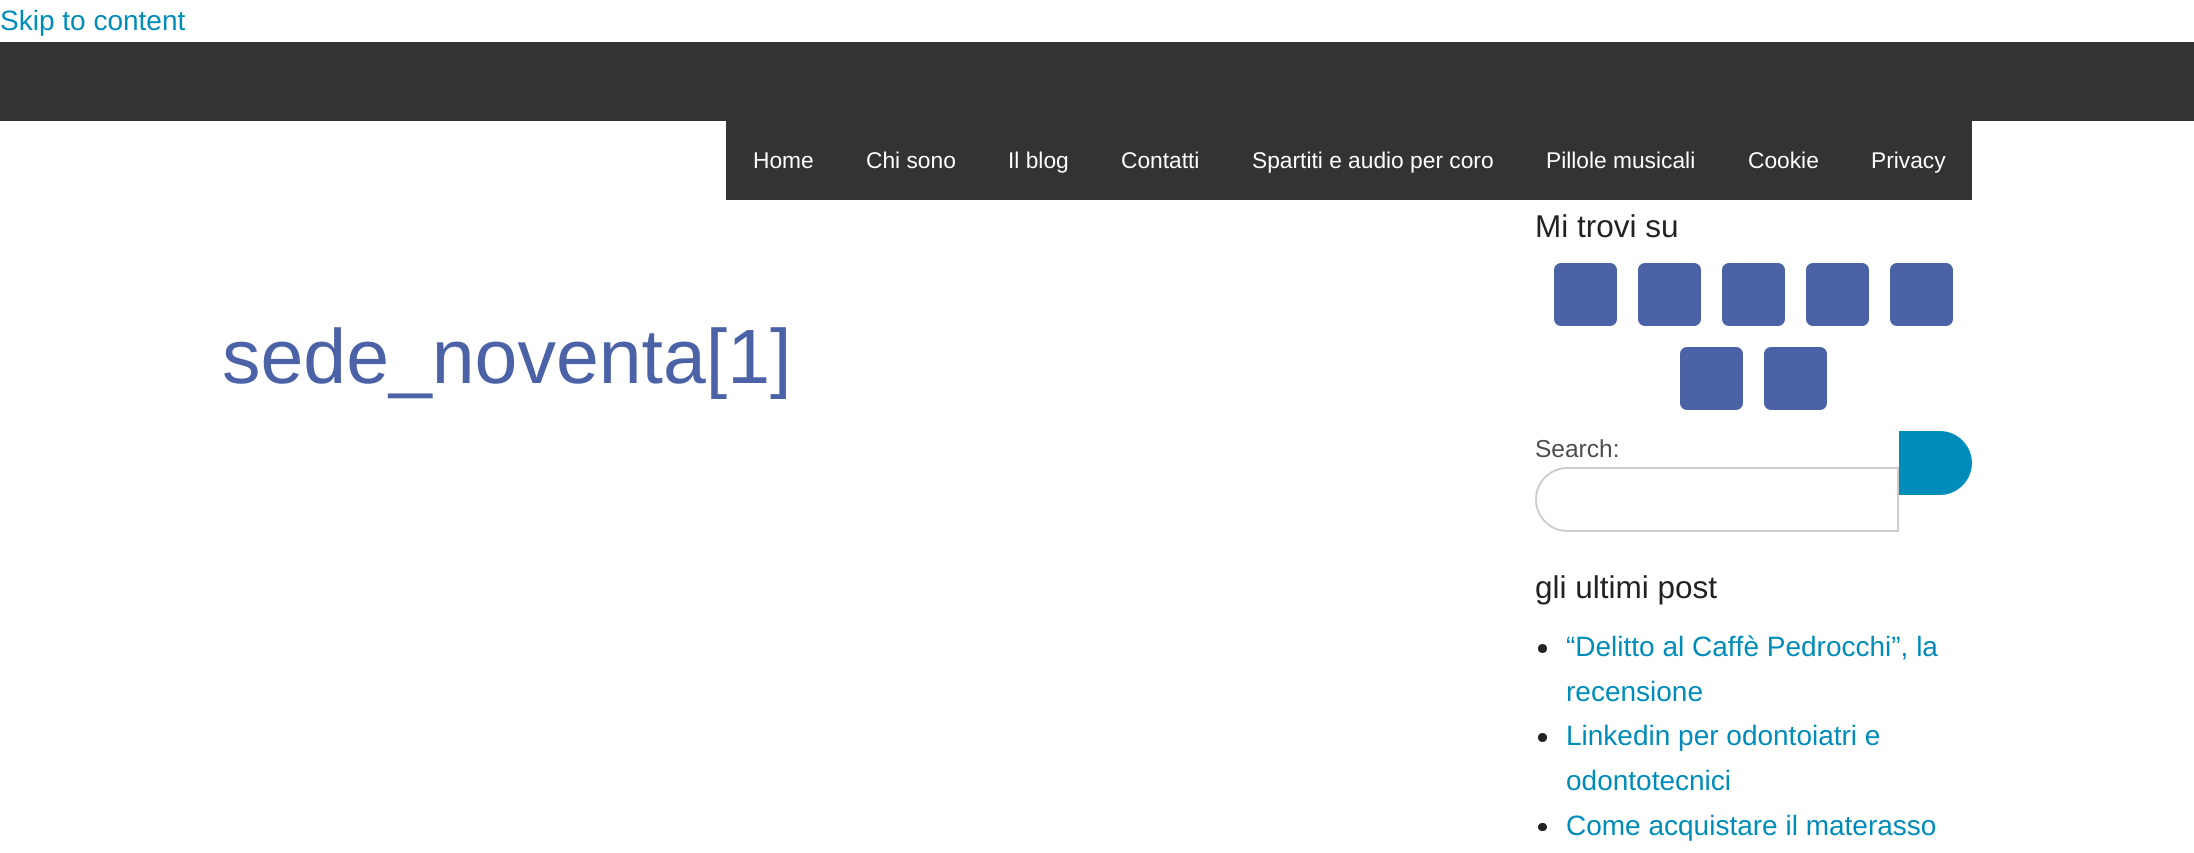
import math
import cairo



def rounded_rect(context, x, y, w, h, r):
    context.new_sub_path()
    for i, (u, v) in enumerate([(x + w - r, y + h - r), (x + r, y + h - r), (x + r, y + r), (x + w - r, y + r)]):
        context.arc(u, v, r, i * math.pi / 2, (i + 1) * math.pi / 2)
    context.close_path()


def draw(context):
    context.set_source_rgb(1, 1, 1)
    context.paint()
    context.set_source_rgb(51 / 255, 51 / 255, 51 / 255)
    context.rectangle(0, 42, 2194, 79)
    context.fill()
    context.rectangle(726, 121, 1246, 79)
    context.fill()
    context.set_source_rgb(75 / 255, 98 / 255, 166 / 255)
    rounded_rect(context, 1554, 263, 63, 63, 7)
    context.fill()
    rounded_rect(context, 1638, 263, 63, 63, 7)
    context.fill()
    rounded_rect(context, 1722, 263, 63, 63, 7)
    context.fill()
    rounded_rect(context, 1806, 263, 63, 63, 7)
    context.fill()
    rounded_rect(context, 1890, 263, 63, 63, 7)
    context.fill()
    rounded_rect(context, 1680, 347, 63, 63, 7)
    context.fill()
    rounded_rect(context, 1764, 347, 63, 63, 7)
    context.fill()
    context.new_path()
    context.move_to(1567.5, 468)
    context.line_to(1898, 468)
    context.line_to(1898, 531)
    context.line_to(1567.5, 531)
    context.curve_to(1550, 531, 1536, 517, 1536, 499.5)
    context.curve_to(1536, 482, 1550, 468, 1567.5, 468)
    context.close_path()
    context.set_source_rgb(204 / 255, 204 / 255, 204 / 255)
    context.stroke()
    context.set_source_rgb(0, 140 / 255, 186 / 255)
    context.new_path()
    context.move_to(1899, 431)
    context.line_to(1940, 431)
    context.curve_to(1957.5, 431, 1972, 445.5, 1972, 463)
    context.curve_to(1972, 480.5, 1957.5, 495, 1940, 495)
    context.line_to(1899, 495)
    context.close_path()
    context.fill()
    context.set_source_rgb(34 / 255, 34 / 255, 34 / 255)
    context.arc(1542.5, 648.5, 4.5, 0, 2 * math.pi)
    context.fill()
    context.arc(1542.5, 737.5, 4.5, 0, 2 * math.pi)
    context.fill()
    rounded_rect(context, 1538, 823, 9, 8, 4)
    context.fill()
    context.select_font_face("Liberation Sans")
    context.set_font_size(28)
    context.set_source_rgb(0, 140 / 255, 186 / 255)
    context.move_to(0, 30)
    context.show_text("Skip to content")
    context.set_font_size(22.75)
    context.set_source_rgb(1, 1, 1)
    context.move_to(753, 168)
    context.show_text("Home")
    context.move_to(866, 168)
    context.show_text("Chi sono")
    context.move_to(1008, 168)
    context.show_text("Il blog")
    context.move_to(1121, 168)
    context.show_text("Contatti")
    context.move_to(1252, 168)
    context.show_text("Spartiti e audio per coro")
    context.move_to(1546, 168)
    context.show_text("Pillole musicali")
    context.move_to(1748, 168)
    context.show_text("Cookie")
    context.move_to(1871, 168)
    context.show_text("Privacy")
    context.set_font_size(77)
    context.set_source_rgb(75 / 255, 98 / 255, 166 / 255)
    context.move_to(222, 383)
    context.show_text("sede_noventa[1]")
    context.set_font_size(31.5)
    context.set_source_rgb(34 / 255, 34 / 255, 34 / 255)
    context.move_to(1535, 237)
    context.show_text("Mi trovi su")
    context.set_font_size(24.5)
    context.set_source_rgb(77 / 255, 77 / 255, 77 / 255)
    context.move_to(1535, 457)
    context.show_text("Search:")
    context.set_font_size(31.5)
    context.set_source_rgb(34 / 255, 34 / 255, 34 / 255)
    context.move_to(1535, 598)
    context.show_text("gli ultimi post")
    context.set_font_size(28)
    context.set_source_rgb(0, 140 / 255, 186 / 255)
    context.move_to(1566, 656)
    context.show_text("“Delitto al Caffè Pedrocchi”, la")
    context.move_to(1566, 701)
    context.show_text("recensione")
    context.move_to(1566, 745)
    context.show_text("Linkedin per odontoiatri e")
    context.move_to(1566, 790)
    context.show_text("odontotecnici")
    context.move_to(1566, 835)
    context.show_text("Come acquistare il materasso")


surface = cairo.ImageSurface(cairo.Format.RGB24, 2194, 853)
context = cairo.Context(surface)
options = cairo.FontOptions()
options.set_hint_metrics(cairo.HintMetrics.OFF)
options.set_hint_style(cairo.HintStyle.NONE)
context.set_font_options(options)
context.set_miter_limit(4)
draw(context)
surface.write_to_png("out.png")
